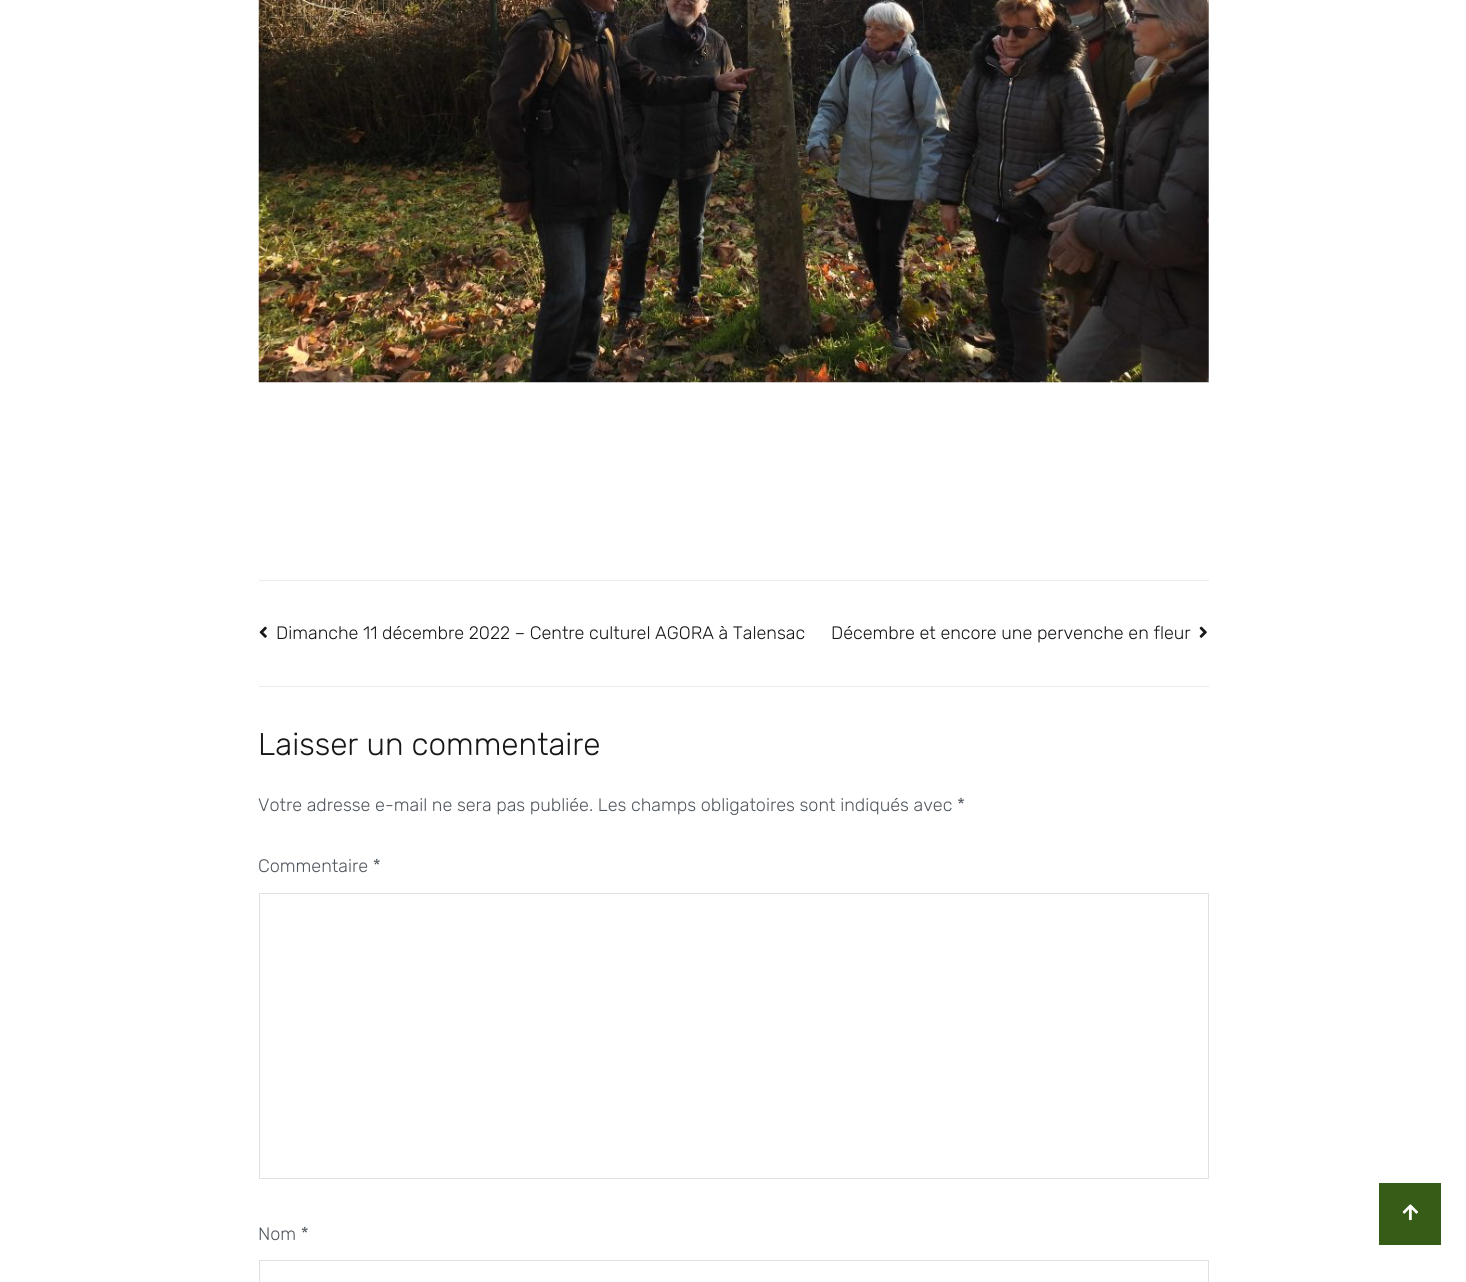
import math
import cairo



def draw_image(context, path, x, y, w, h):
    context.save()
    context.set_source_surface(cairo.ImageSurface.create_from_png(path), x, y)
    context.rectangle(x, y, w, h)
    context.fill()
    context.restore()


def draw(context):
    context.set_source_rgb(1, 1, 1)
    context.paint()
    draw_image(context, "images/1.png", 258, 0, 951, 383)
    context.set_source_rgb(233 / 255, 236 / 255, 239 / 255)
    context.rectangle(259, 580, 950, 1)
    context.fill()
    draw_image(context, "images/2.png", 259, 626, 8, 12)
    draw_image(context, "images/3.png", 1199, 626, 8, 12)
    context.rectangle(259, 686, 950, 1)
    context.fill()
    context.rectangle(259.5, 893.5, 949, 285)
    context.set_source_rgb(222 / 255, 226 / 255, 230 / 255)
    context.set_line_width(1)
    context.stroke()
    context.rectangle(259.5, 1260.5, 949, 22)
    context.stroke()
    context.set_source_rgb(54 / 255, 93 / 255, 23 / 255)
    context.rectangle(1379, 1183, 62, 62)
    context.fill()
    draw_image(context, "images/4.png", 1402, 1204, 16, 17)
    context.select_font_face("Rubik Light")
    context.set_font_size(18)
    context.set_source_rgb(22 / 255, 24 / 255, 26 / 255)
    context.move_to(276, 639)
    context.show_text("Dimanche 11 décembre 2022 – Centre culturel AGORA à Talensac")
    context.move_to(831, 639)
    context.show_text("Décembre et encore une pervenche en fleur")
    context.set_font_size(31.5)
    context.move_to(258, 755)
    context.show_text("Laisser un commentaire")
    context.set_font_size(18)
    context.set_source_rgb(81 / 255, 88 / 255, 95 / 255)
    context.move_to(258, 811)
    context.show_text("Votre adresse e-mail ne sera pas publiée. Les champs obligatoires sont indiqués avec *")
    context.move_to(258, 872)
    context.show_text("Commentaire *")
    context.move_to(258, 1240)
    context.show_text("Nom *")


surface = cairo.ImageSurface(cairo.Format.RGB24, 1466, 1282)
context = cairo.Context(surface)
options = cairo.FontOptions()
options.set_hint_metrics(cairo.HintMetrics.OFF)
options.set_hint_style(cairo.HintStyle.NONE)
context.set_font_options(options)
context.set_miter_limit(4)
draw(context)
surface.write_to_png("out.png")
